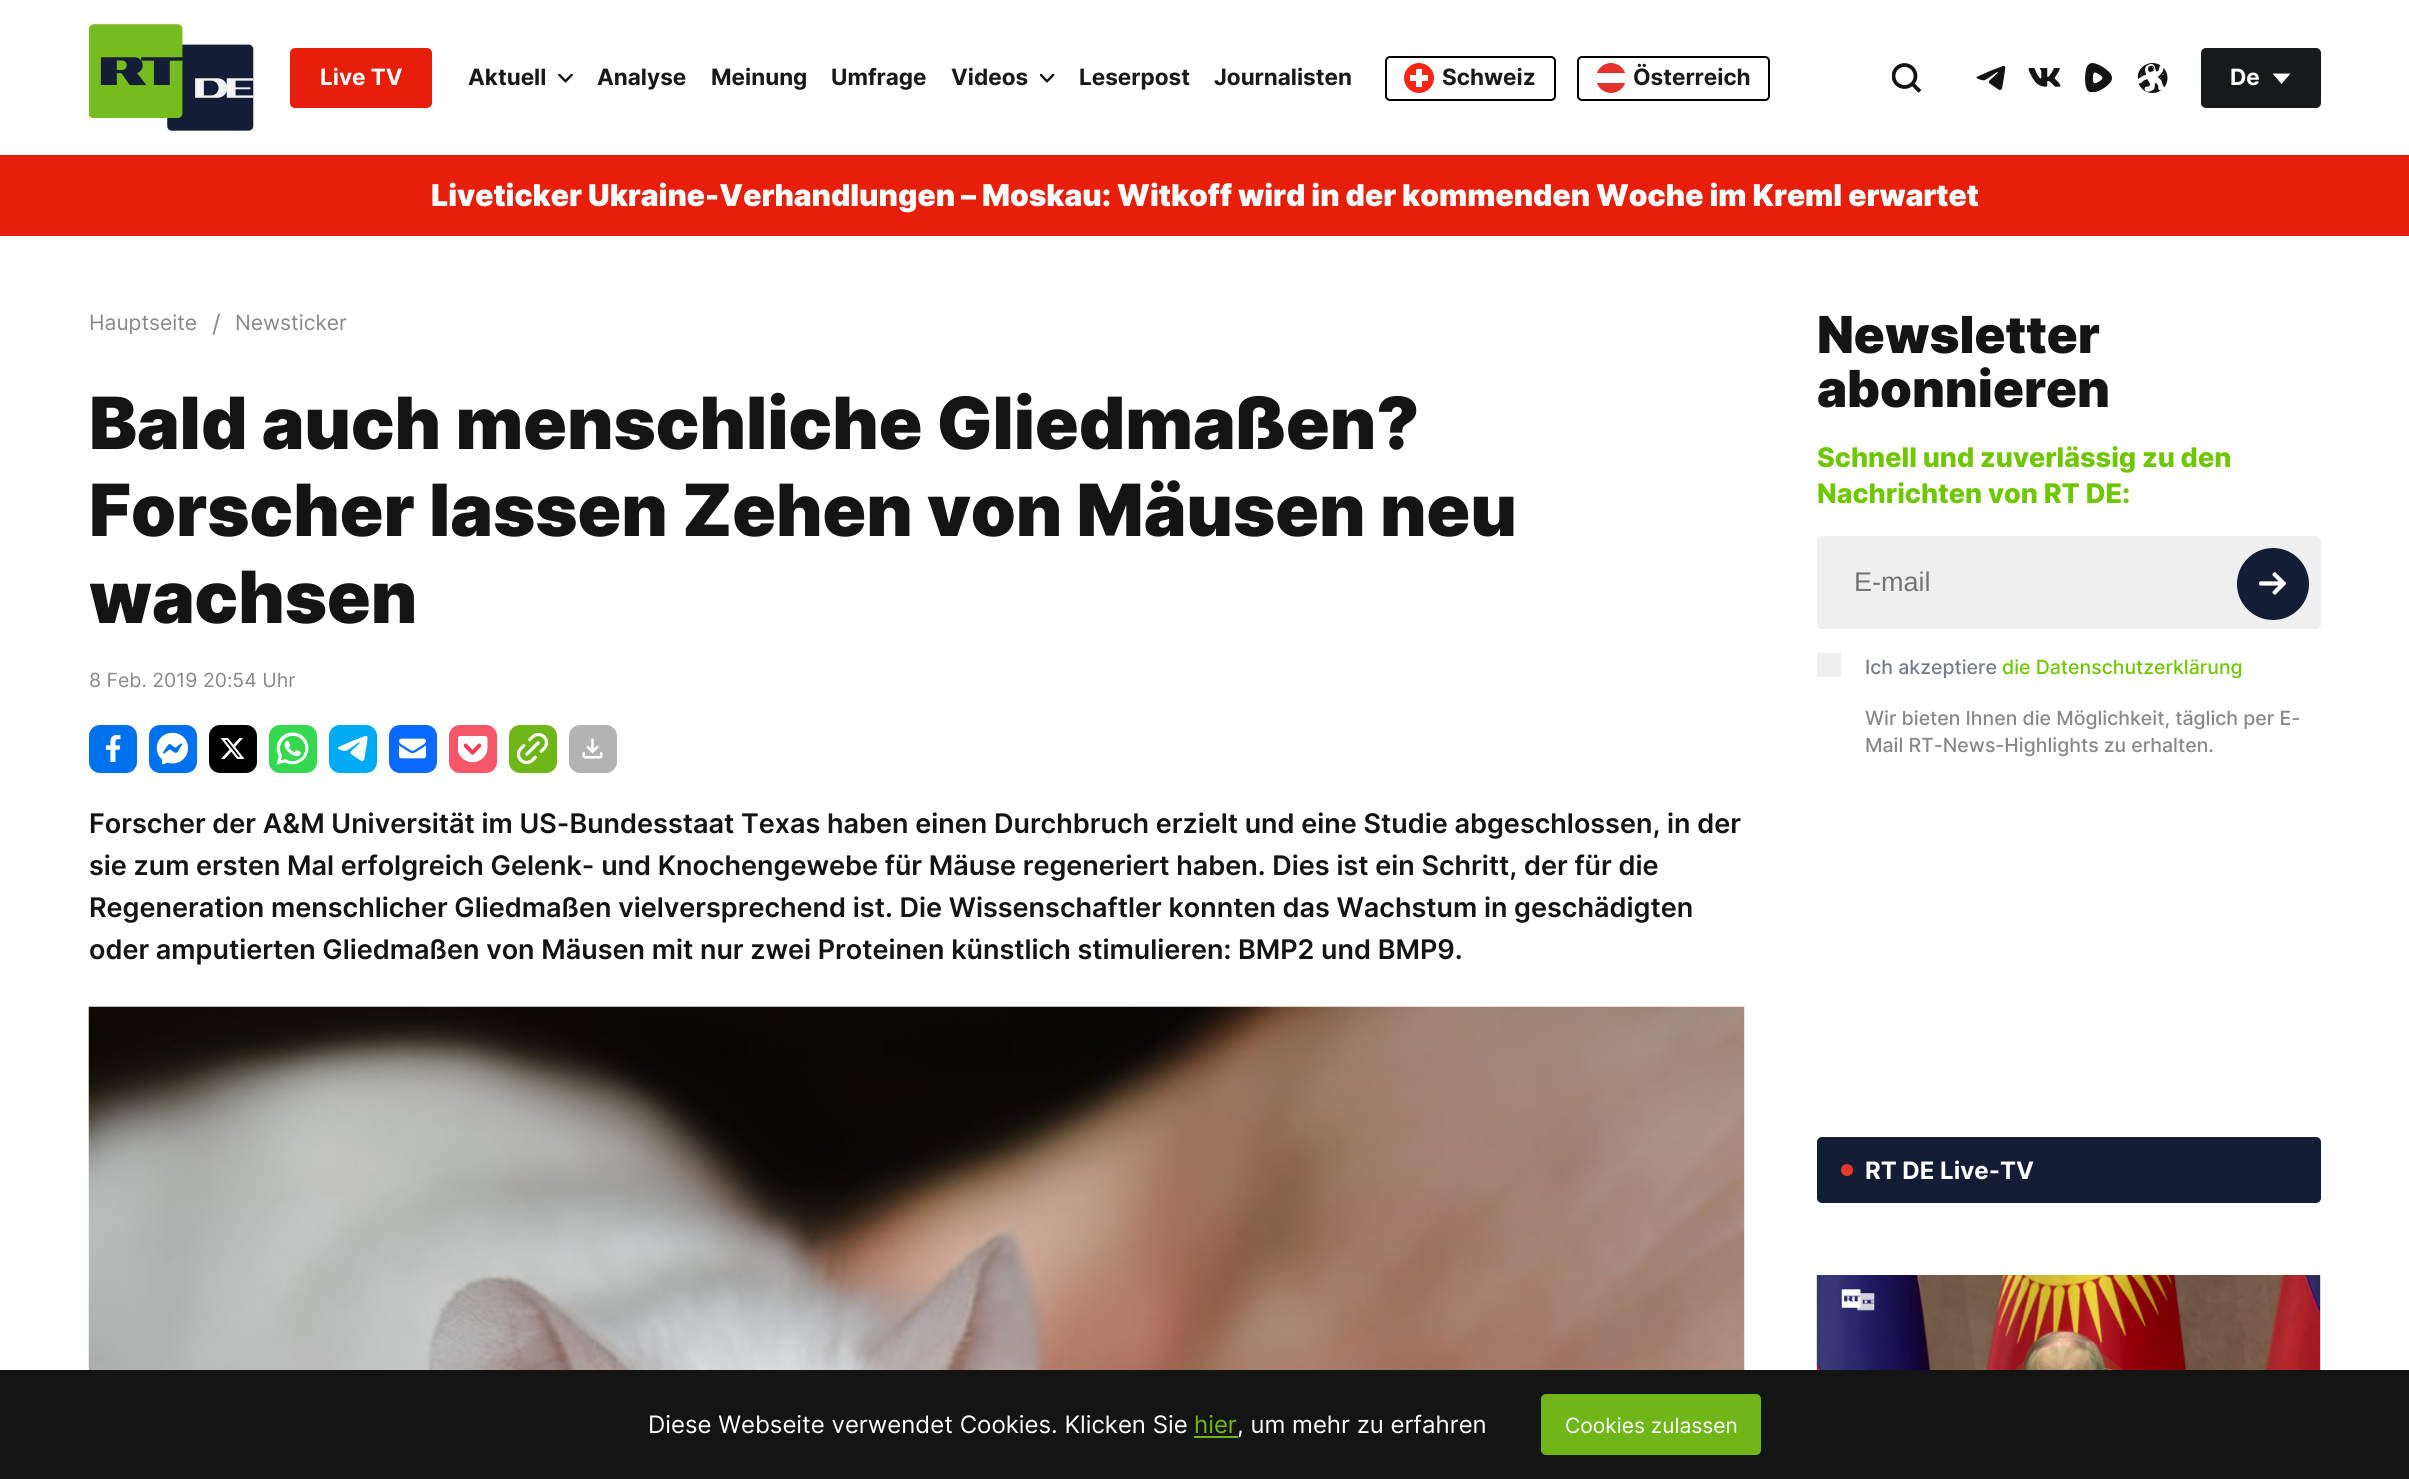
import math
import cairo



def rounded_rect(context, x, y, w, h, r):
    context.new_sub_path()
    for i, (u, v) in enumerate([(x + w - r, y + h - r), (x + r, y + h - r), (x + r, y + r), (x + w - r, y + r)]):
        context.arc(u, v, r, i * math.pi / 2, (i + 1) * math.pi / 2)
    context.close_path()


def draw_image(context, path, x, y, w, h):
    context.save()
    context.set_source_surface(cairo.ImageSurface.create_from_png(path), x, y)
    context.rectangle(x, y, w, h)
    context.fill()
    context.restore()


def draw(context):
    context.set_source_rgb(1, 1, 1)
    context.paint()
    draw_image(context, "images/1.png", 89, 24, 165, 107)
    context.set_source_rgb(230 / 255, 30 / 255, 10 / 255)
    rounded_rect(context, 290, 48, 142, 60, 5)
    context.fill()
    draw_image(context, "images/2.png", 558, 74, 15, 9)
    draw_image(context, "images/3.png", 1040, 74, 15, 9)
    rounded_rect(context, 1386, 57, 169, 43, 4)
    context.set_source_rgb(0, 0, 0)
    context.stroke()
    context.set_source_rgb(247 / 255, 38 / 255, 23 / 255)
    context.arc(1419, 78, 15, 0, 2 * math.pi)
    context.fill()
    context.set_source_rgb(1, 1, 1)
    context.rectangle(1416, 69, 6, 18)
    context.fill()
    context.rectangle(1410, 75, 18, 6)
    context.fill()
    rounded_rect(context, 1578, 57, 191, 43, 4)
    context.set_source_rgb(0, 0, 0)
    context.stroke()
    context.set_source_rgb(228 / 255, 49 / 255, 43 / 255)
    context.arc(1611, 78, 15, 0, 2 * math.pi)
    context.fill()
    context.save()
    context.rectangle(1596, 63, 30, 30)
    context.clip()
    context.set_source_rgb(1, 1, 1)
    context.new_path()
    context.move_to(1597, 83)
    context.curve_to(1595.5, 80, 1595.5, 76, 1597, 73)
    context.line_to(1625, 73)
    context.curve_to(1626.5, 76, 1626.5, 80, 1625, 83)
    context.close_path()
    context.fill()
    context.restore()
    context.save()
    context.rectangle(1892, 63, 30, 30)
    context.clip()
    context.arc(1904.5, 76, 11, 0, 2 * math.pi)
    context.set_source_rgb(20 / 255, 20 / 255, 20 / 255)
    context.set_line_width(3.8)
    context.stroke()
    context.restore()
    context.new_path()
    context.move_to(1912, 83.5)
    context.line_to(1920, 91.5)
    context.set_source_rgb(20 / 255, 20 / 255, 20 / 255)
    context.set_line_width(3.8)
    context.stroke()
    draw_image(context, "images/4.png", 1976, 66, 30, 24)
    draw_image(context, "images/5.png", 2028, 68, 33, 19)
    draw_image(context, "images/6.png", 2085, 63, 27, 29)
    draw_image(context, "images/7.png", 2138, 63, 30, 30)
    context.set_source_rgb(24 / 255, 25 / 255, 26 / 255)
    rounded_rect(context, 2201, 48, 120, 60, 5)
    context.fill()
    context.set_source_rgb(1, 1, 1)
    context.new_path()
    context.move_to(2272.5, 73.5)
    context.line_to(2290.5, 73.5)
    context.line_to(2281.5, 84)
    context.close_path()
    context.fill()
    context.set_source_rgb(230 / 255, 30 / 255, 10 / 255)
    context.rectangle(0, 155, 2409, 81)
    context.fill()
    context.set_source_rgb(0, 113 / 255, 237 / 255)
    rounded_rect(context, 89, 725, 48, 48, 11)
    context.fill()
    draw_image(context, "images/8.png", 106, 735, 15, 27)
    rounded_rect(context, 149, 725, 48, 48, 11)
    context.fill()
    draw_image(context, "images/9.png", 156, 732, 32, 33)
    context.set_source_rgb(0, 0, 0)
    rounded_rect(context, 209, 725, 48, 48, 11)
    context.fill()
    draw_image(context, "images/10.png", 220, 738, 25, 21)
    context.set_source_rgb(53 / 255, 217 / 255, 79 / 255)
    rounded_rect(context, 269, 725, 48, 48, 11)
    context.fill()
    draw_image(context, "images/11.png", 276, 732, 33, 33)
    context.set_source_rgb(0, 170 / 255, 245 / 255)
    rounded_rect(context, 329, 725, 48, 48, 11)
    context.fill()
    draw_image(context, "images/12.png", 338, 736, 30, 25)
    context.set_source_rgb(8 / 255, 106 / 255, 1)
    rounded_rect(context, 389, 725, 48, 48, 11)
    context.fill()
    draw_image(context, "images/13.png", 399, 738, 27, 21)
    context.set_source_rgb(245 / 255, 87 / 255, 105 / 255)
    rounded_rect(context, 449, 725, 48, 48, 11)
    context.fill()
    draw_image(context, "images/14.png", 458, 736, 30, 27)
    context.set_source_rgb(111 / 255, 183 / 255, 25 / 255)
    rounded_rect(context, 509, 725, 48, 48, 11)
    context.fill()
    draw_image(context, "images/15.png", 516, 732, 33, 33)
    context.set_source_rgb(179 / 255, 179 / 255, 179 / 255)
    rounded_rect(context, 569, 725, 48, 48, 11)
    context.fill()
    draw_image(context, "images/16.png", 582, 738, 21, 21)
    draw_image(context, "images/17.png", 88, 1006, 1657, 364)
    context.set_source_rgb(239 / 255, 239 / 255, 239 / 255)
    rounded_rect(context, 1817, 536, 504, 93, 5)
    context.fill()
    context.set_source_rgb(19 / 255, 29 / 255, 54 / 255)
    context.arc(2273, 584, 36, 0, 2 * math.pi)
    context.fill()
    draw_image(context, "images/18.png", 2259, 572, 27, 23)
    context.set_source_rgb(239 / 255, 239 / 255, 239 / 255)
    context.rectangle(1817, 653, 24, 24)
    context.fill()
    context.set_source_rgb(19 / 255, 29 / 255, 54 / 255)
    rounded_rect(context, 1817, 1137, 504, 66, 5)
    context.fill()
    context.set_source_rgb(225 / 255, 58 / 255, 40 / 255)
    context.arc(1847, 1170, 6, 0, 2 * math.pi)
    context.fill()
    draw_image(context, "images/19.png", 1816, 1275, 505, 95)
    context.set_source_rgb(20 / 255, 20 / 255, 20 / 255)
    context.rectangle(0, 1370, 2409, 109)
    context.fill()
    context.set_source_rgb(111 / 255, 183 / 255, 25 / 255)
    context.rectangle(1194, 1436, 44, 2)
    context.fill()
    rounded_rect(context, 1541, 1394, 220, 61, 5)
    context.fill()
    context.select_font_face("Inter", cairo.FontSlant.NORMAL, cairo.FontWeight.BOLD)
    context.set_font_size(22.5)
    context.set_source_rgb(1, 1, 1)
    context.move_to(320, 85)
    context.show_text("Live TV")
    context.set_source_rgb(24 / 255, 25 / 255, 26 / 255)
    context.move_to(468, 85)
    context.show_text("Aktuell")
    context.move_to(597, 85)
    context.show_text("Analyse")
    context.move_to(711, 85)
    context.show_text("Meinung")
    context.move_to(831, 85)
    context.show_text("Umfrage")
    context.move_to(951, 85)
    context.show_text("Videos")
    context.move_to(1079, 85)
    context.show_text("Leserpost")
    context.move_to(1214, 85)
    context.show_text("Journalisten")
    context.move_to(1442, 85)
    context.show_text("Schweiz")
    context.move_to(1633, 85)
    context.show_text("Österreich")
    context.set_source_rgb(1, 1, 1)
    context.move_to(2230, 85)
    context.show_text("De")
    context.select_font_face("Inter Black")
    context.set_font_size(30)
    context.move_to(431, 206)
    context.show_text("Liveticker Ukraine-Verhandlungen – Moskau: Witkoff wird in der kommenden Woche im Kreml erwartet")
    context.select_font_face("Inter")
    context.set_font_size(21)
    context.set_source_rgb(136 / 255, 136 / 255, 136 / 255)
    context.move_to(89, 330)
    context.show_text("Hauptseite")
    context.set_font_size(24)
    context.move_to(212, 332)
    context.show_text("/")
    context.set_font_size(21)
    context.move_to(235, 330)
    context.show_text("Newsticker")
    context.select_font_face("Inter Black")
    context.set_font_size(72)
    context.set_source_rgb(20 / 255, 20 / 255, 20 / 255)
    context.move_to(89, 449)
    context.show_text("Bald auch menschliche Gliedmaßen?")
    context.move_to(89, 536)
    context.show_text("Forscher lassen Zehen von Mäusen neu")
    context.move_to(89, 623)
    context.show_text("wachsen")
    context.select_font_face("Inter")
    context.set_font_size(19.5)
    context.set_source_rgb(136 / 255, 136 / 255, 136 / 255)
    context.move_to(89, 687)
    context.show_text("8 Feb. 2019 20:54 Uhr")
    context.select_font_face("Inter SemiBold")
    context.set_font_size(27)
    context.set_source_rgb(20 / 255, 20 / 255, 20 / 255)
    context.move_to(89, 833)
    context.show_text("Forscher der A&M Universität im US-Bundesstaat Texas haben einen Durchbruch erzielt und eine Studie abgeschlossen, in der")
    context.move_to(89, 875)
    context.show_text("sie zum ersten Mal erfolgreich Gelenk- und Knochengewebe für Mäuse regeneriert haben. Dies ist ein Schritt, der für die")
    context.move_to(89, 917)
    context.show_text("Regeneration menschlicher Gliedmaßen vielversprechend ist. Die Wissenschaftler konnten das Wachstum in geschädigten")
    context.move_to(89, 959)
    context.show_text("oder amputierten Gliedmaßen von Mäusen mit nur zwei Proteinen künstlich stimulieren: BMP2 und BMP9.")
    context.select_font_face("Inter Black")
    context.set_font_size(51)
    context.move_to(1817, 353)
    context.show_text("Newsletter")
    context.move_to(1817, 407)
    context.show_text("abonnieren")
    context.select_font_face("Inter ExtraBold")
    context.set_font_size(27)
    context.set_source_rgb(110 / 255, 199 / 255, 2 / 255)
    context.move_to(1817, 467)
    context.show_text("Schnell und zuverlässig zu den")
    context.move_to(1817, 503)
    context.show_text("Nachrichten von RT DE:")
    context.select_font_face("Liberation Sans")
    context.set_source_rgb(117 / 255, 117 / 255, 117 / 255)
    context.move_to(1854, 591)
    context.show_text("E-mail")
    context.select_font_face("Inter Medium")
    context.set_font_size(19.5)
    context.set_source_rgb(119 / 255, 124 / 255, 134 / 255)
    context.move_to(1865, 674)
    context.show_text("Ich akzeptiere")
    context.set_source_rgb(110 / 255, 199 / 255, 2 / 255)
    context.move_to(2002, 674)
    context.show_text("die Datenschutzerklärung")
    context.set_source_rgb(136 / 255, 136 / 255, 136 / 255)
    context.move_to(1865, 725)
    context.show_text("Wir bieten Ihnen die Möglichkeit, täglich per E-")
    context.move_to(1865, 752)
    context.show_text("Mail RT-News-Highlights zu erhalten.")
    context.select_font_face("Inter", cairo.FontSlant.NORMAL, cairo.FontWeight.BOLD)
    context.set_font_size(24)
    context.set_source_rgb(1, 1, 1)
    context.move_to(1865, 1179)
    context.show_text("RT DE Live-TV")
    context.select_font_face("Inter")
    context.move_to(648, 1433)
    context.show_text("Diese Webseite verwendet Cookies. Klicken Sie")
    context.set_source_rgb(111 / 255, 183 / 255, 25 / 255)
    context.move_to(1194, 1433)
    context.show_text("hier")
    context.set_source_rgb(1, 1, 1)
    context.move_to(1237, 1433)
    context.show_text(", um mehr zu erfahren")
    context.set_font_size(21)
    context.move_to(1565, 1433)
    context.show_text("Cookies zulassen")


surface = cairo.ImageSurface(cairo.Format.RGB24, 2409, 1479)
context = cairo.Context(surface)
options = cairo.FontOptions()
options.set_hint_metrics(cairo.HintMetrics.OFF)
options.set_hint_style(cairo.HintStyle.NONE)
context.set_font_options(options)
context.set_miter_limit(4)
draw(context)
surface.write_to_png("out.png")
